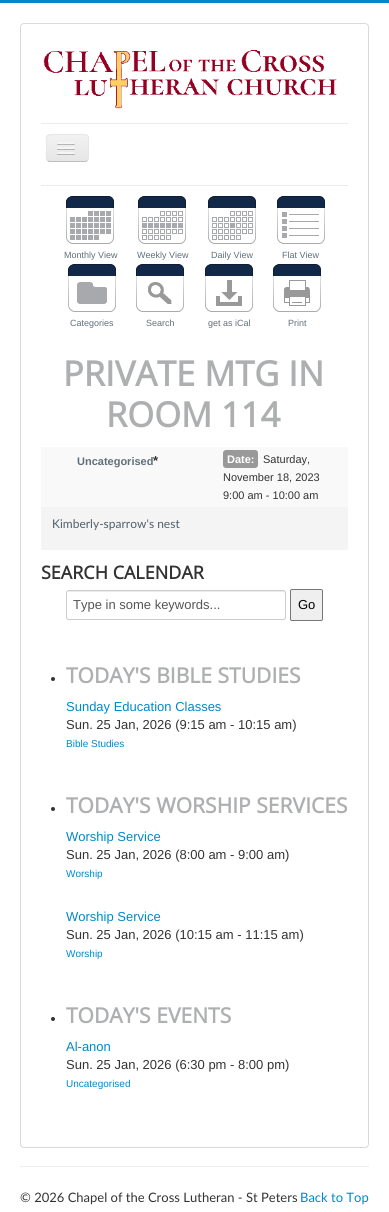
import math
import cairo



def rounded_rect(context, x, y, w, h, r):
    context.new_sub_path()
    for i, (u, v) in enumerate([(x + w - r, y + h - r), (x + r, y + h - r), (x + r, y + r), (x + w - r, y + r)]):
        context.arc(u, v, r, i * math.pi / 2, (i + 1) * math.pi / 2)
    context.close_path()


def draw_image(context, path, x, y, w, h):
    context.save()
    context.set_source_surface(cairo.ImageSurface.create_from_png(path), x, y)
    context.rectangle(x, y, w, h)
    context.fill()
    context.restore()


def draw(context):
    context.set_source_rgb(1, 1, 1)
    context.paint()
    context.set_source_rgb(0, 136 / 255, 204 / 255)
    context.rectangle(0, 0, 389, 3)
    context.fill()
    rounded_rect(context, 20.5, 23.5, 348, 1124, 3.5)
    context.set_source_rgb(217 / 255, 217 / 255, 217 / 255)
    context.set_line_width(1)
    context.stroke()
    draw_image(context, "images/1.png", 43, 50, 294, 59)
    context.set_source_rgb(236 / 255, 236 / 255, 236 / 255)
    context.rectangle(41, 123, 307, 1)
    context.fill()
    context.rectangle(41, 185, 307, 1)
    context.fill()
    context.set_source_rgb(237 / 255, 237 / 255, 237 / 255)
    rounded_rect(context, 46, 134, 43, 28, 4)
    context.fill()
    context.save()
    rounded_rect(context, 46, 134, 43, 28, 4)
    context.clip()
    gradient = cairo.LinearGradient(68, 135, 68, 161)
    gradient.add_color_stop_rgba(0, 242 / 255, 242 / 255, 242 / 255, 1)
    gradient.add_color_stop_rgba(1, 230 / 255, 230 / 255, 230 / 255, 1)
    context.set_source(gradient)
    context.rectangle(46, 135, 43, 26)
    context.fill()
    context.restore()
    context.new_path()
    context.move_to(87.5, 160.5)
    context.curve_to(87, 161, 86, 161.5, 85, 161.5)
    context.line_to(50, 161.5)
    context.curve_to(49, 161.5, 48, 161, 47.5, 160.5)
    context.set_source_rgb(191 / 255, 191 / 255, 191 / 255)
    context.stroke()
    context.new_path()
    context.move_to(47.5, 160.5)
    context.curve_to(45.5, 158, 46.5, 150.5, 46.5, 148)
    context.curve_to(46.5, 136, 44, 134.5, 56, 134.5)
    context.line_to(79, 134.5)
    context.curve_to(91, 134.5, 88.5, 136, 88.5, 148)
    context.curve_to(88.5, 150.5, 89.5, 158, 87.5, 160.5)
    context.set_source_rgb(230 / 255, 230 / 255, 230 / 255)
    context.stroke()
    context.set_source_rgb(179 / 255, 179 / 255, 179 / 255)
    context.new_path()
    context.move_to(57, 143.5)
    context.curve_to(56, 145.5, 60.5, 145, 60.5, 145)
    context.line_to(71.5, 145)
    context.curve_to(71.5, 145, 76, 145.5, 75, 143.5)
    context.curve_to(74, 144.5, 67.5, 144, 66, 144)
    context.curve_to(64.5, 144, 58, 144.5, 57, 143.5)
    context.close_path()
    context.fill()
    context.set_source_rgb(245 / 255, 245 / 255, 245 / 255)
    rounded_rect(context, 57, 142, 18, 2, 1)
    context.fill()
    context.set_source_rgb(176 / 255, 176 / 255, 176 / 255)
    context.new_path()
    context.move_to(57, 148.5)
    context.curve_to(56, 150.5, 60.5, 150, 60.5, 150)
    context.line_to(71.5, 150)
    context.curve_to(71.5, 150, 76, 150.5, 75, 148.5)
    context.curve_to(74, 149.5, 67.5, 149, 66, 149)
    context.curve_to(64.5, 149, 58, 149.5, 57, 148.5)
    context.close_path()
    context.fill()
    context.set_source_rgb(245 / 255, 245 / 255, 245 / 255)
    rounded_rect(context, 57, 147, 18, 2, 1)
    context.fill()
    context.set_source_rgb(175 / 255, 175 / 255, 175 / 255)
    context.new_path()
    context.move_to(57, 153.5)
    context.curve_to(56, 155.5, 60.5, 155, 60.5, 155)
    context.line_to(71.5, 155)
    context.curve_to(71.5, 155, 76, 155.5, 75, 153.5)
    context.curve_to(74, 154.5, 67.5, 154, 66, 154)
    context.curve_to(64.5, 154, 58, 154.5, 57, 153.5)
    context.close_path()
    context.fill()
    context.set_source_rgb(245 / 255, 245 / 255, 245 / 255)
    rounded_rect(context, 57, 152, 18, 2, 1)
    context.fill()
    draw_image(context, "images/2.png", 66, 196, 48, 48)
    draw_image(context, "images/3.png", 138, 196, 48, 48)
    draw_image(context, "images/4.png", 208, 196, 48, 48)
    draw_image(context, "images/5.png", 277, 196, 48, 48)
    draw_image(context, "images/6.png", 68, 264, 48, 48)
    draw_image(context, "images/7.png", 136, 264, 48, 48)
    draw_image(context, "images/8.png", 205, 264, 48, 48)
    draw_image(context, "images/9.png", 273, 264, 48, 48)
    context.set_source_rgb(249 / 255, 249 / 255, 249 / 255)
    context.rectangle(41, 447, 307, 60)
    context.fill()
    context.set_source_rgb(153 / 255, 153 / 255, 153 / 255)
    rounded_rect(context, 223, 450, 35, 18, 3)
    context.fill()
    context.set_source_rgb(244 / 255, 244 / 255, 244 / 255)
    context.rectangle(41, 507, 307, 43)
    context.fill()
    context.set_source_rgb(236 / 255, 236 / 255, 236 / 255)
    context.new_path()
    context.move_to(69, 592)
    context.line_to(283, 592)
    context.curve_to(284, 592, 285, 593, 285, 594)
    context.curve_to(285, 593, 285, 591, 283, 591)
    context.line_to(69, 591)
    context.line_to(68, 592)
    context.line_to(67, 594)
    context.curve_to(67, 593, 68, 592, 69, 592)
    context.close_path()
    context.fill()
    rounded_rect(context, 66.5, 590.5, 219, 29, 2.5)
    context.set_source_rgb(204 / 255, 204 / 255, 204 / 255)
    context.stroke()
    context.set_source_rgb(239 / 255, 239 / 255, 239 / 255)
    rounded_rect(context, 290.5, 589.5, 32, 31, 1.5)
    context.fill_preserve()
    context.set_source_rgb(118 / 255, 118 / 255, 118 / 255)
    context.stroke()
    context.set_source_rgb(51 / 255, 51 / 255, 51 / 255)
    context.arc(53, 679, 2, 0, 2 * math.pi)
    context.fill()
    context.arc(53, 809, 2, 0, 2 * math.pi)
    context.fill()
    context.arc(53, 1019, 2, 0, 2 * math.pi)
    context.fill()
    context.set_source_rgb(238 / 255, 238 / 255, 238 / 255)
    context.rectangle(20, 1166, 349, 1)
    context.fill()
    context.select_font_face("Liberation Sans")
    context.set_font_size(9)
    context.set_source_rgb(96 / 255, 111 / 255, 121 / 255)
    context.move_to(64, 258)
    context.show_text("Monthly View")
    context.move_to(137, 258)
    context.show_text("Weekly View")
    context.move_to(211, 258)
    context.show_text("Daily View")
    context.move_to(282, 258)
    context.show_text("Flat View")
    context.move_to(70, 326)
    context.show_text("Categories")
    context.move_to(146, 326)
    context.show_text("Search")
    context.move_to(208, 326)
    context.show_text("get as iCal")
    context.move_to(288, 326)
    context.show_text("Print")
    context.select_font_face("Open Sans", cairo.FontSlant.NORMAL, cairo.FontWeight.BOLD)
    context.set_font_size(34.5)
    context.set_source_rgb(173 / 255, 175 / 255, 176 / 255)
    context.move_to(63, 386)
    context.show_text("PRIVATE MTG IN")
    context.move_to(106, 427)
    context.show_text("ROOM 114")
    context.select_font_face("Liberation Sans", cairo.FontSlant.NORMAL, cairo.FontWeight.BOLD)
    context.set_font_size(11)
    context.set_source_rgb(96 / 255, 111 / 255, 121 / 255)
    context.move_to(77, 465)
    context.show_text("Uncategorised")
    context.set_font_size(13)
    context.set_source_rgb(51 / 255, 51 / 255, 51 / 255)
    context.move_to(153, 465)
    context.show_text("*")
    context.set_font_size(11)
    context.set_source_rgb(1, 1, 1)
    context.move_to(227, 463)
    context.show_text("Date:")
    context.select_font_face("Liberation Sans")
    context.set_source_rgb(51 / 255, 51 / 255, 51 / 255)
    context.move_to(263, 463)
    context.show_text("Saturday,")
    context.move_to(223, 481)
    context.show_text("November 18, 2023")
    context.move_to(223, 499)
    context.show_text("9:00 am - 10:00 am")
    context.select_font_face("Lato")
    context.set_font_size(12)
    context.set_source_rgb(80 / 255, 95 / 255, 105 / 255)
    context.move_to(52, 528)
    context.show_text("Kimberly-sparrow's nest")
    context.select_font_face("Open Sans", cairo.FontSlant.NORMAL, cairo.FontWeight.BOLD)
    context.set_font_size(18)
    context.set_source_rgb(51 / 255, 51 / 255, 51 / 255)
    context.move_to(41, 579)
    context.show_text("SEARCH CALENDAR")
    context.select_font_face("Liberation Sans")
    context.set_font_size(13)
    context.set_source_rgb(85 / 255, 85 / 255, 85 / 255)
    context.move_to(73, 609)
    context.show_text("Type in some keywords...")
    context.set_source_rgb(0, 0, 0)
    context.move_to(298, 609)
    context.show_text("Go")
    context.select_font_face("Open Sans", cairo.FontSlant.NORMAL, cairo.FontWeight.BOLD)
    context.set_font_size(21.1)
    context.set_source_rgb(173 / 255, 175 / 255, 176 / 255)
    context.move_to(66, 683)
    context.show_text("TODAY'S BIBLE STUDIES")
    context.select_font_face("Liberation Sans")
    context.set_font_size(13)
    context.set_source_rgb(0, 136 / 255, 204 / 255)
    context.move_to(66, 711)
    context.show_text("Sunday Education Classes")
    context.set_source_rgb(51 / 255, 51 / 255, 51 / 255)
    context.move_to(66, 729)
    context.show_text("Sun. 25 Jan, 2026 (9:15 am - 10:15 am)")
    context.set_font_size(10)
    context.set_source_rgb(0, 136 / 255, 204 / 255)
    context.move_to(66, 747)
    context.show_text("Bible Studies")
    context.select_font_face("Open Sans", cairo.FontSlant.NORMAL, cairo.FontWeight.BOLD)
    context.set_font_size(21.1)
    context.set_source_rgb(173 / 255, 175 / 255, 176 / 255)
    context.move_to(66, 813)
    context.show_text("TODAY'S WORSHIP SERVICES")
    context.select_font_face("Liberation Sans")
    context.set_font_size(13)
    context.set_source_rgb(0, 136 / 255, 204 / 255)
    context.move_to(66, 841)
    context.show_text("Worship Service")
    context.set_source_rgb(51 / 255, 51 / 255, 51 / 255)
    context.move_to(66, 859)
    context.show_text("Sun. 25 Jan, 2026 (8:00 am - 9:00 am)")
    context.set_font_size(10)
    context.set_source_rgb(0, 136 / 255, 204 / 255)
    context.move_to(66, 877)
    context.show_text("Worship")
    context.set_font_size(13)
    context.move_to(66, 921)
    context.show_text("Worship Service")
    context.set_source_rgb(51 / 255, 51 / 255, 51 / 255)
    context.move_to(66, 939)
    context.show_text("Sun. 25 Jan, 2026 (10:15 am - 11:15 am)")
    context.set_font_size(10)
    context.set_source_rgb(0, 136 / 255, 204 / 255)
    context.move_to(66, 957)
    context.show_text("Worship")
    context.select_font_face("Open Sans", cairo.FontSlant.NORMAL, cairo.FontWeight.BOLD)
    context.set_font_size(21.1)
    context.set_source_rgb(173 / 255, 175 / 255, 176 / 255)
    context.move_to(66, 1023)
    context.show_text("TODAY'S EVENTS")
    context.select_font_face("Liberation Sans")
    context.set_font_size(13)
    context.set_source_rgb(0, 136 / 255, 204 / 255)
    context.move_to(66, 1051)
    context.show_text("Al-anon")
    context.set_source_rgb(51 / 255, 51 / 255, 51 / 255)
    context.move_to(66, 1069)
    context.show_text("Sun. 25 Jan, 2026 (6:30 pm - 8:00 pm)")
    context.set_font_size(10)
    context.set_source_rgb(0, 136 / 255, 204 / 255)
    context.move_to(66, 1087)
    context.show_text("Uncategorised")
    context.select_font_face("Lato")
    context.set_font_size(13)
    context.set_source_rgb(51 / 255, 51 / 255, 51 / 255)
    context.move_to(20, 1202)
    context.show_text("© 2026 Chapel of the Cross Lutheran - St Peters")
    context.set_source_rgb(0, 136 / 255, 204 / 255)
    context.move_to(300, 1202)
    context.show_text("Back to Top")


surface = cairo.ImageSurface(cairo.Format.RGB24, 389, 1212)
context = cairo.Context(surface)
options = cairo.FontOptions()
options.set_hint_metrics(cairo.HintMetrics.OFF)
options.set_hint_style(cairo.HintStyle.NONE)
context.set_font_options(options)
context.set_miter_limit(4)
draw(context)
surface.write_to_png("out.png")
